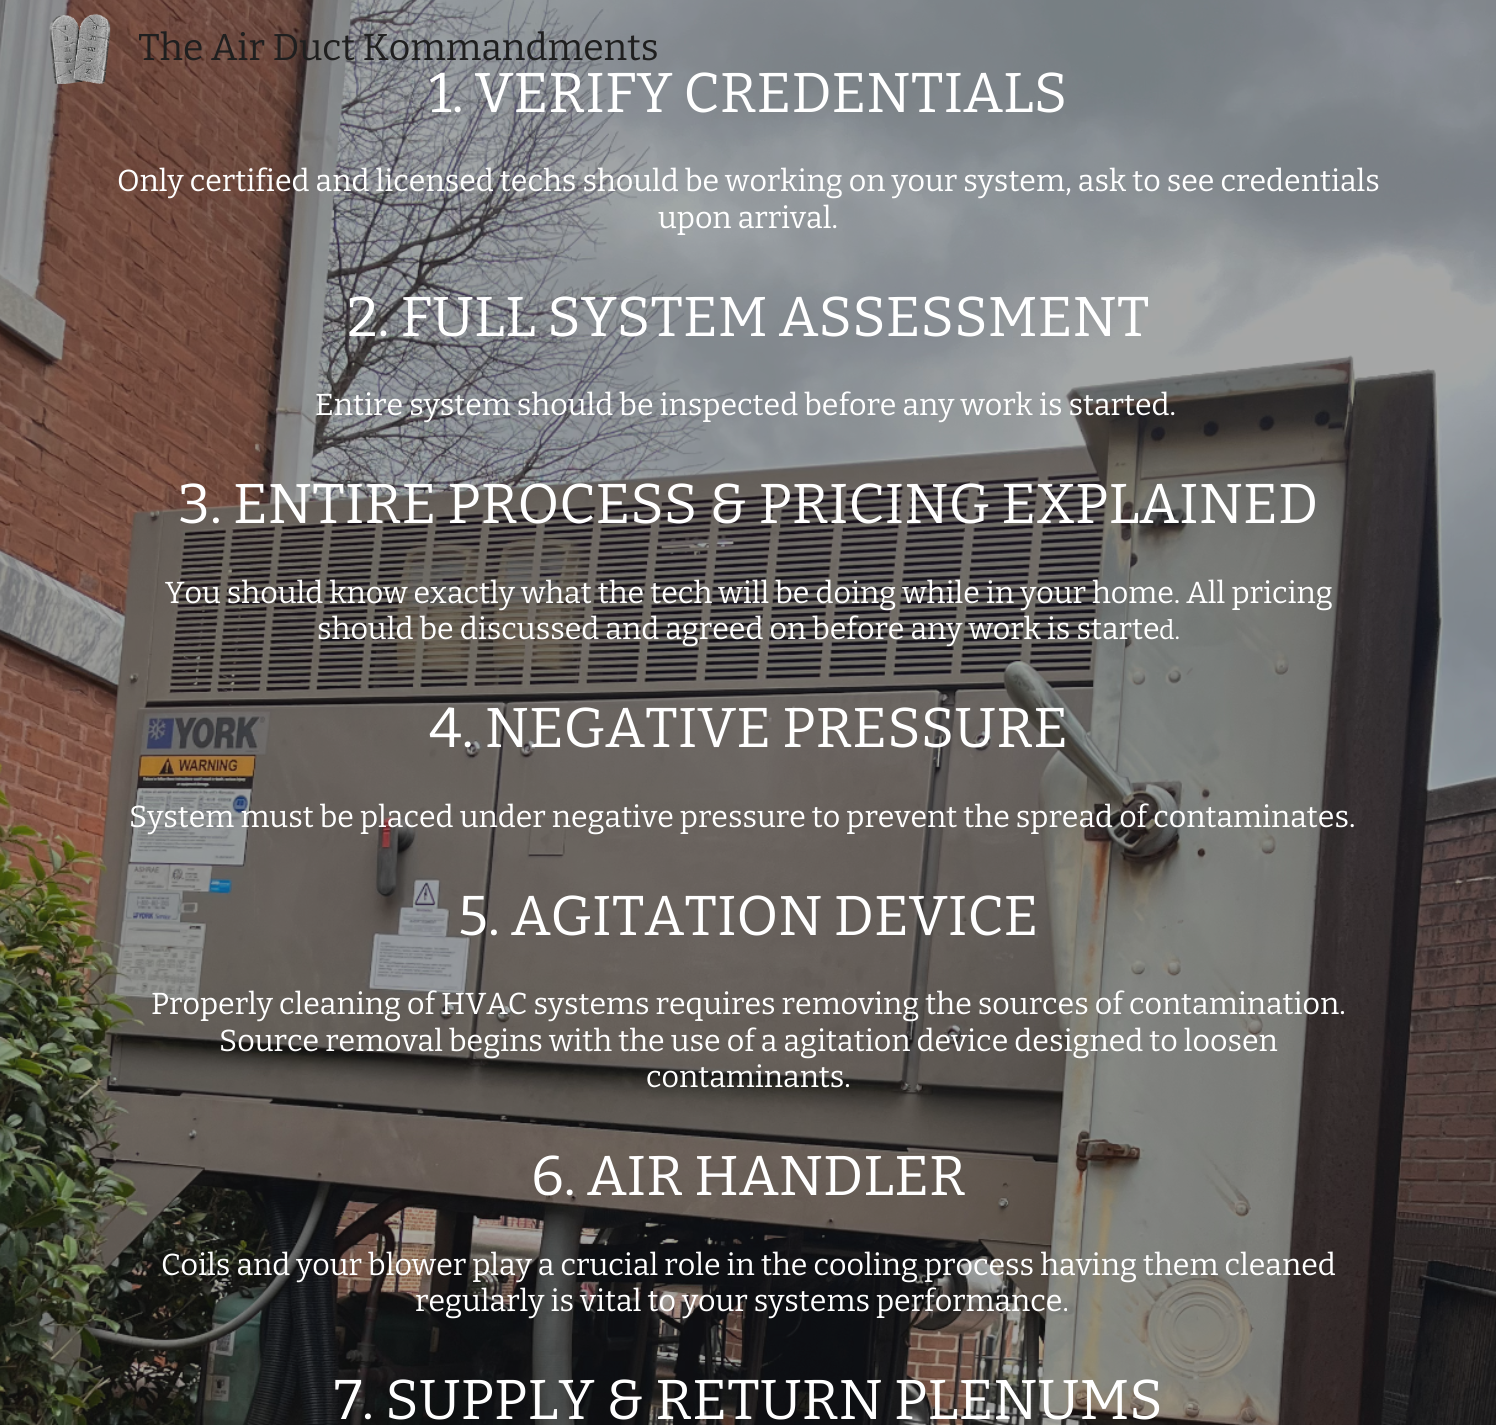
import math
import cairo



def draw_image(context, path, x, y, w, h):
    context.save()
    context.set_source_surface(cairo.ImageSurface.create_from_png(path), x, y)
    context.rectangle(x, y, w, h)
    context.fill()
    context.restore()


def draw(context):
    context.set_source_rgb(1, 1, 1)
    context.paint()
    draw_image(context, "images/2.png", 0, 0, 1496, 1425)
    draw_image(context, "images/1.png", 49, 13, 62, 71)
    context.select_font_face("Bitter")
    context.set_font_size(37.3)
    context.set_source_rgb(31 / 255, 31 / 255, 31 / 255)
    context.move_to(138, 60)
    context.show_text("The Air Duct Kommandments")
    context.set_font_size(56)
    context.set_source_rgb(1, 1, 1)
    context.move_to(429, 112)
    context.show_text("1. VERIFY CREDENTIALS")
    context.set_font_size(30.35)
    context.move_to(117, 191)
    context.show_text("Only certified and licensed techs should be working on your system, ask to see credentials")
    context.move_to(658, 228)
    context.show_text("upon arrival.")
    context.set_font_size(56)
    context.move_to(347, 336)
    context.show_text("2. FULL SYSTEM ASSESSMENT")
    context.set_font_size(30.35)
    context.move_to(315, 415)
    context.show_text("Entire system should be inspected before any work is started.")
    context.set_font_size(56)
    context.move_to(178, 523)
    context.show_text("3. ENTIRE PROCESS & PRICING EXPLAINED")
    context.set_font_size(30.35)
    context.move_to(165, 603)
    context.show_text("You should know exactly what the tech will be doing while in your home. All pricing")
    context.move_to(317, 639)
    context.show_text("should be discussed and agreed on before any work is starte")
    context.set_font_size(26)
    context.move_to(1159, 639)
    context.show_text("d.")
    context.set_font_size(56)
    context.move_to(429, 747)
    context.show_text("4. NEGATIVE PRESSURE")
    context.set_font_size(30.35)
    context.move_to(129, 827)
    context.show_text("System must be placed under negative pressure to prevent the spread of contaminates.")
    context.set_font_size(56)
    context.move_to(458, 935)
    context.show_text("5. AGITATION DEVICE")
    context.set_font_size(30.35)
    context.move_to(151, 1014)
    context.show_text("Properly cleaning of HVAC systems requires removing the sources of contamination.")
    context.move_to(219, 1051)
    context.show_text("Source removal begins with the use of a agitation device designed to loosen")
    context.move_to(646, 1087)
    context.show_text("contaminants.")
    context.set_font_size(56)
    context.move_to(531, 1195)
    context.show_text("6. AIR HANDLER")
    context.set_font_size(30.35)
    context.move_to(161, 1275)
    context.show_text("Coils and your blower play a crucial role in the cooling process having them cleaned")
    context.move_to(415, 1311)
    context.show_text("regularly is vital to your systems performance.")
    context.set_font_size(56)
    context.move_to(334, 1419)
    context.show_text("7. SUPPLY & RETURN PLENUMS")


surface = cairo.ImageSurface(cairo.Format.RGB24, 1496, 1425)
context = cairo.Context(surface)
options = cairo.FontOptions()
options.set_hint_metrics(cairo.HintMetrics.OFF)
options.set_hint_style(cairo.HintStyle.NONE)
context.set_font_options(options)
context.set_miter_limit(4)
draw(context)
surface.write_to_png("out.png")
